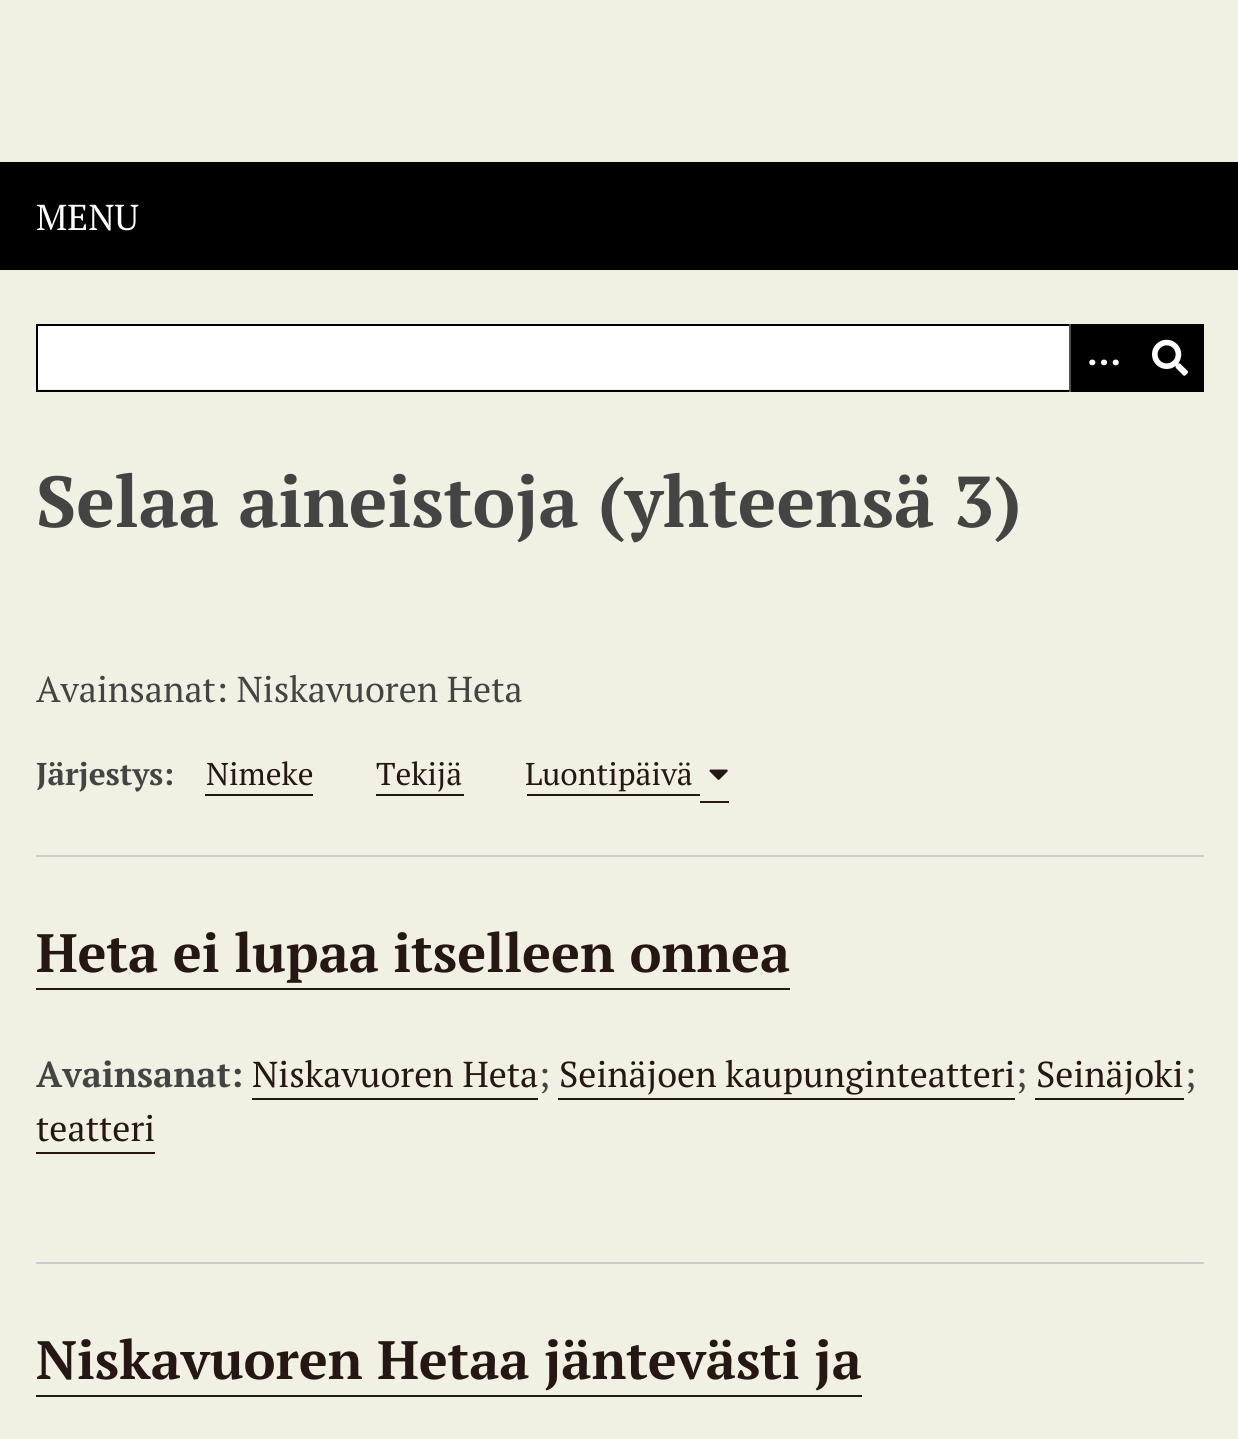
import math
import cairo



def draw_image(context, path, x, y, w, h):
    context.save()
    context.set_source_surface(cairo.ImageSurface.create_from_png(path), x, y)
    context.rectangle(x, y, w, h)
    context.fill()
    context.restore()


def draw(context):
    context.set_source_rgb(240 / 255, 241 / 255, 226 / 255)
    context.paint()
    context.set_source_rgb(0, 0, 0)
    context.rectangle(0, 162, 1238, 108)
    context.fill()
    context.set_source_rgb(1, 1, 1)
    context.rectangle(38, 326, 1031, 63)
    context.fill()
    context.rectangle(37, 325, 1166, 66)
    context.set_source_rgb(0, 0, 0)
    context.stroke()
    context.rectangle(1071, 326, 131, 64)
    context.fill()
    context.set_source_rgb(77 / 255, 77 / 255, 77 / 255)
    context.rectangle(1069, 324, 2, 68)
    context.fill()
    draw_image(context, "images/1.png", 1152, 339, 36, 37)
    context.set_source_rgb(38 / 255, 23 / 255, 20 / 255)
    context.rectangle(205, 794, 108, 2)
    context.fill()
    context.rectangle(376, 794, 88, 2)
    context.fill()
    context.rectangle(527, 794, 173, 2)
    context.fill()
    context.rectangle(700, 801, 29, 2)
    context.fill()
    draw_image(context, "images/2.png", 709, 769, 19, 11)
    context.set_source_rgb(204 / 255, 204 / 255, 204 / 255)
    context.rectangle(36, 855, 1168, 2)
    context.fill()
    context.set_source_rgb(38 / 255, 23 / 255, 20 / 255)
    context.rectangle(36, 988, 754, 2)
    context.fill()
    context.rectangle(252, 1098, 286, 2)
    context.fill()
    context.rectangle(558, 1098, 457, 2)
    context.fill()
    context.rectangle(1035, 1098, 149, 2)
    context.fill()
    context.rectangle(36, 1152, 119, 2)
    context.fill()
    context.set_source_rgb(204 / 255, 204 / 255, 204 / 255)
    context.rectangle(36, 1262, 1168, 2)
    context.fill()
    context.set_source_rgb(38 / 255, 23 / 255, 20 / 255)
    context.rectangle(36, 1395, 826, 2)
    context.fill()
    context.select_font_face("PT Serif")
    context.set_font_size(36)
    context.set_source_rgb(1, 1, 1)
    context.move_to(36, 230)
    context.show_text("MENU")
    context.select_font_face("PT Serif", cairo.FontSlant.NORMAL, cairo.FontWeight.BOLD)
    context.move_to(1087, 365)
    context.show_text("…")
    context.set_font_size(72)
    context.set_source_rgb(68 / 255, 68 / 255, 68 / 255)
    context.move_to(36, 527)
    context.show_text("Selaa aineistoja (yhteensä 3)")
    context.select_font_face("PT Serif")
    context.set_font_size(36)
    context.move_to(36, 702)
    context.show_text("Avainsanat: Niskavuoren Heta")
    context.select_font_face("PT Serif", cairo.FontSlant.NORMAL, cairo.FontWeight.BOLD)
    context.set_font_size(31.5)
    context.move_to(36, 785)
    context.show_text("Järjestys:")
    context.select_font_face("PT Serif")
    context.set_source_rgb(38 / 255, 23 / 255, 20 / 255)
    context.move_to(206, 785)
    context.show_text("Nimeke")
    context.move_to(376, 785)
    context.show_text("Tekijä")
    context.move_to(525, 785)
    context.show_text("Luontipäivä")
    context.select_font_face("PT Serif", cairo.FontSlant.NORMAL, cairo.FontWeight.BOLD)
    context.set_font_size(54)
    context.move_to(36, 972)
    context.show_text("Heta ei lupaa itselleen onnea")
    context.set_font_size(36)
    context.set_source_rgb(68 / 255, 68 / 255, 68 / 255)
    context.move_to(36, 1087)
    context.show_text("Avainsanat:")
    context.select_font_face("PT Serif")
    context.set_source_rgb(38 / 255, 23 / 255, 20 / 255)
    context.move_to(252, 1087)
    context.show_text("Niskavuoren Heta")
    context.set_source_rgb(68 / 255, 68 / 255, 68 / 255)
    context.move_to(538, 1087)
    context.show_text(";")
    context.set_source_rgb(38 / 255, 23 / 255, 20 / 255)
    context.move_to(559, 1087)
    context.show_text("Seinäjoen kaupunginteatteri")
    context.set_source_rgb(68 / 255, 68 / 255, 68 / 255)
    context.move_to(1015, 1087)
    context.show_text(";")
    context.set_source_rgb(38 / 255, 23 / 255, 20 / 255)
    context.move_to(1036, 1087)
    context.show_text("Seinäjoki")
    context.set_source_rgb(68 / 255, 68 / 255, 68 / 255)
    context.move_to(1184, 1087)
    context.show_text(";")
    context.set_source_rgb(38 / 255, 23 / 255, 20 / 255)
    context.move_to(36, 1141)
    context.show_text("teatteri")
    context.select_font_face("PT Serif", cairo.FontSlant.NORMAL, cairo.FontWeight.BOLD)
    context.set_font_size(54)
    context.move_to(36, 1379)
    context.show_text("Niskavuoren Hetaa jäntevästi ja")


surface = cairo.ImageSurface(cairo.Format.RGB24, 1238, 1439)
context = cairo.Context(surface)
options = cairo.FontOptions()
options.set_hint_metrics(cairo.HintMetrics.OFF)
options.set_hint_style(cairo.HintStyle.NONE)
context.set_font_options(options)
context.set_miter_limit(4)
draw(context)
surface.write_to_png("out.png")
